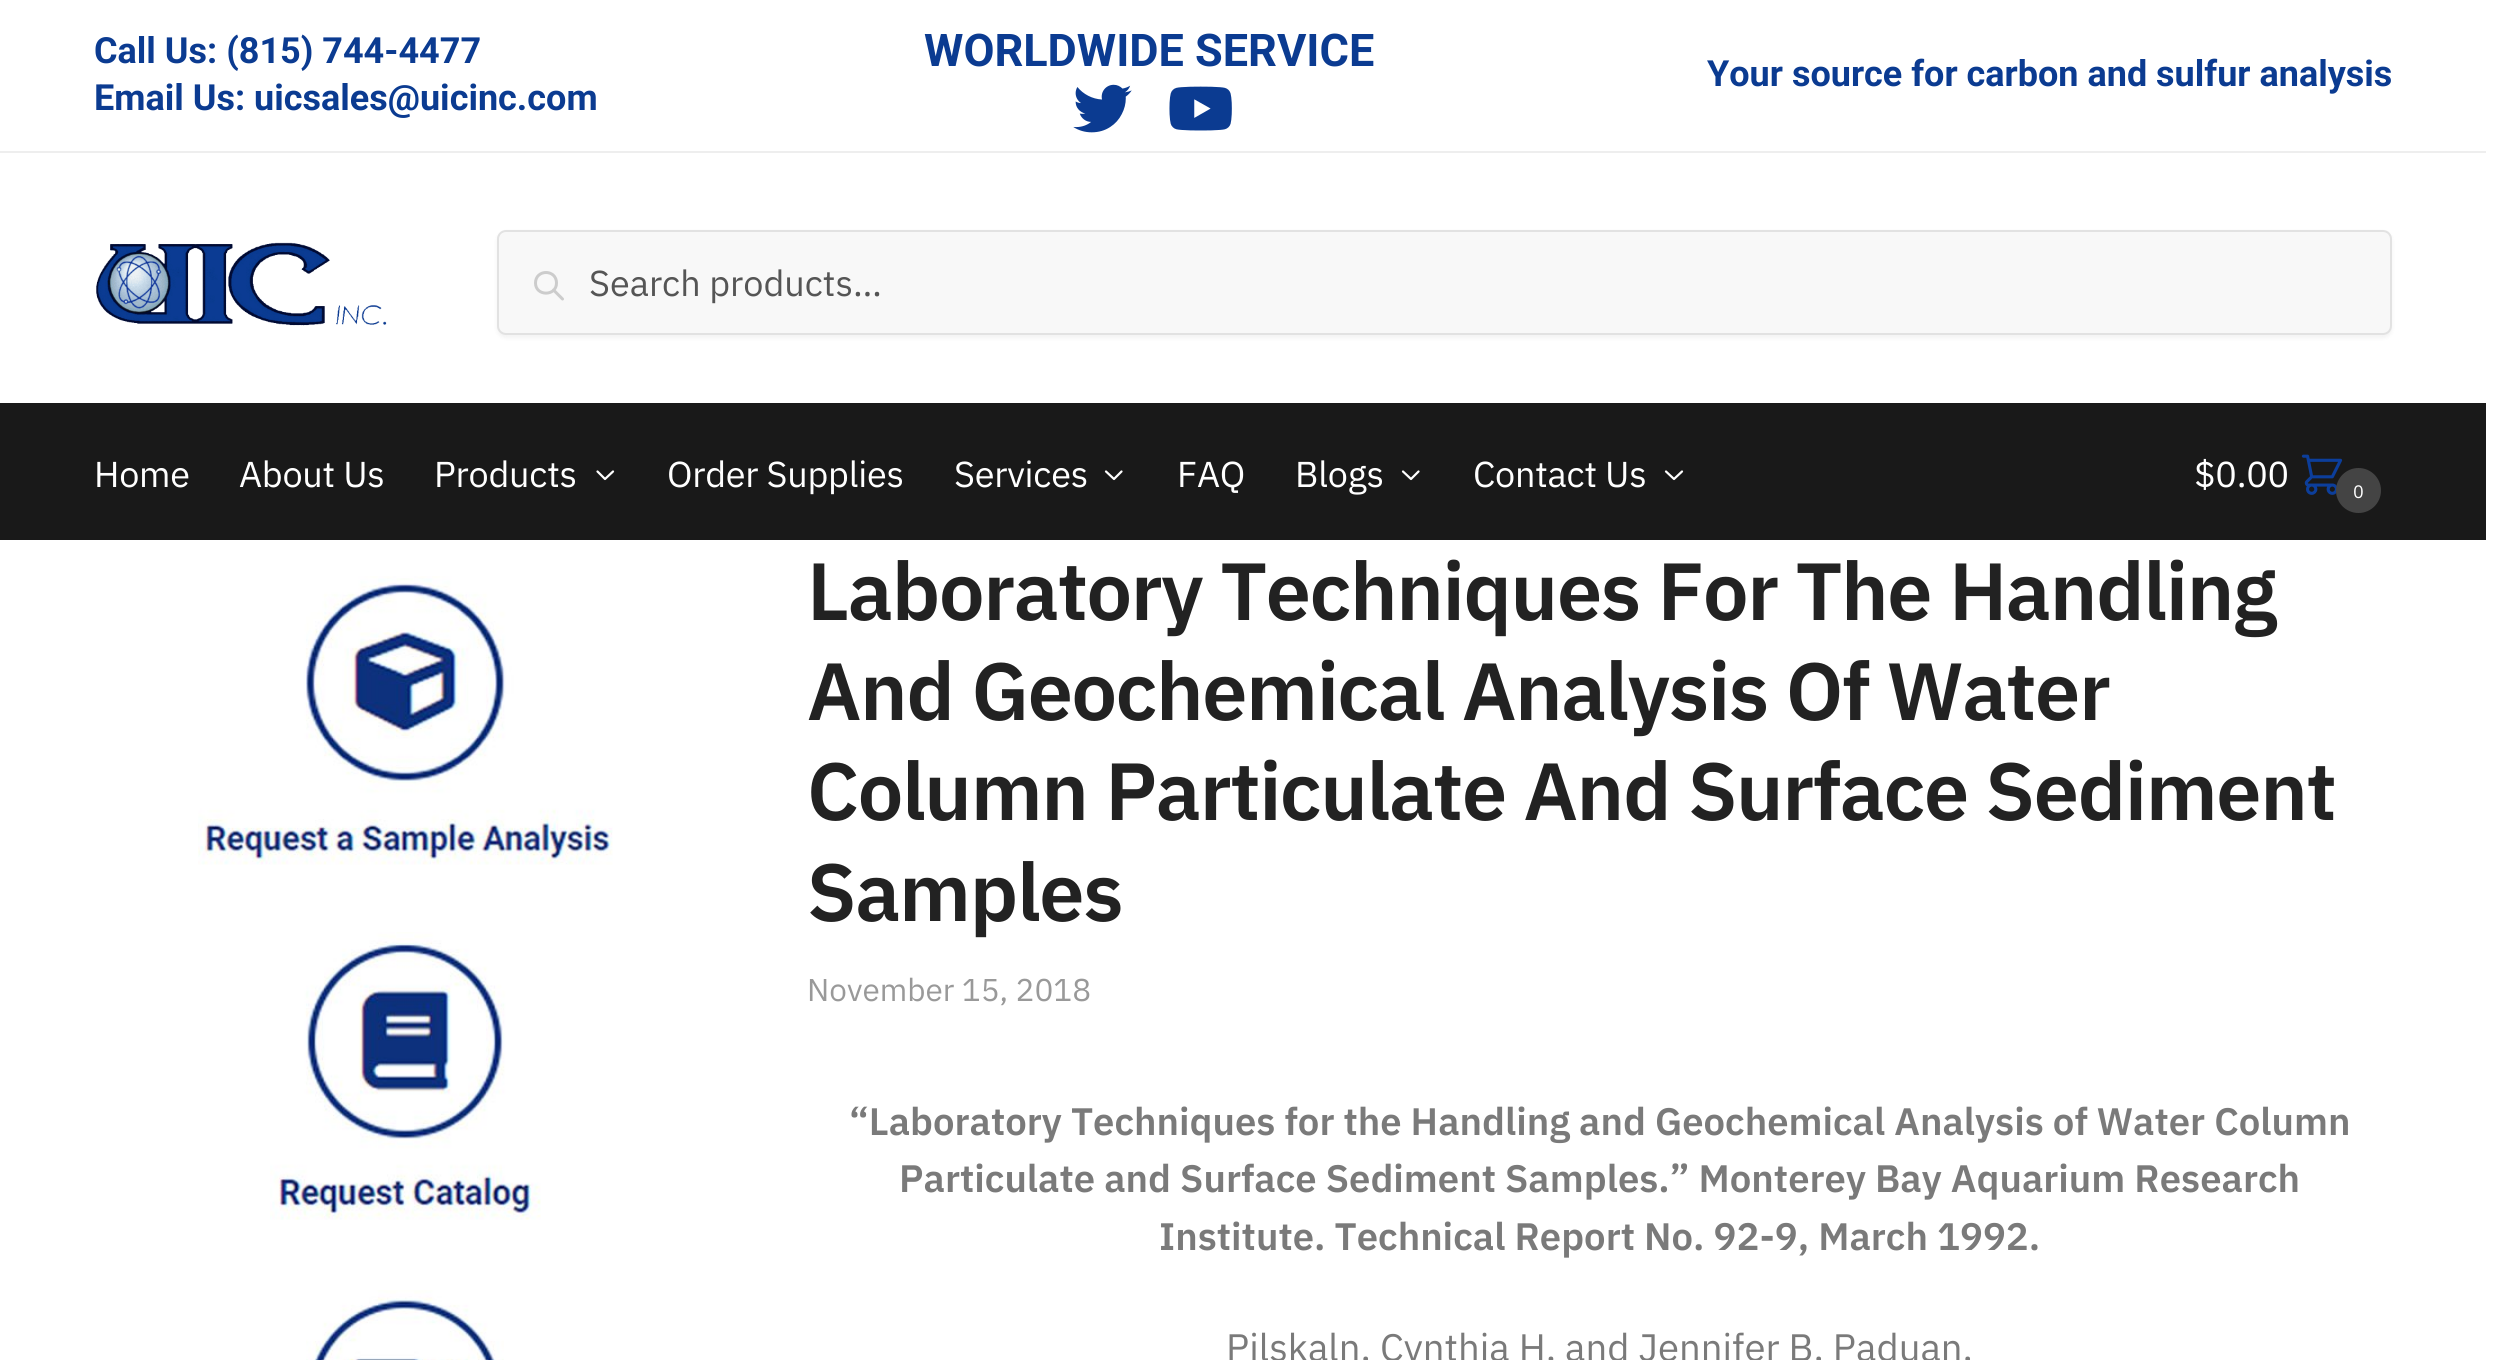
import math
import cairo



def draw_spaced(context, x, y, s, letter, word):
    context.move_to(x, y)
    for ch in s:
        context.show_text(ch)
        context.rel_move_to(letter + word * (ch == ' '), 0)


def rounded_rect(context, x, y, w, h, r):
    context.new_sub_path()
    for i, (u, v) in enumerate([(x + w - r, y + h - r), (x + r, y + h - r), (x + r, y + r), (x + w - r, y + r)]):
        context.arc(u, v, r, i * math.pi / 2, (i + 1) * math.pi / 2)
    context.close_path()


def draw_shadow(context, x, y, w, h, r, blur, alpha):
    context.push_group_with_content(cairo.Content.ALPHA)
    context.set_operator(cairo.Operator.SOURCE)
    for i in range(15, -16, -2):
        e = blur * i / 6
        if min(w, h) + 2 * e > 0:
            context.set_source_rgba(0, 0, 0, alpha * math.erfc((i - 1) / 8.5) / 2)
            rounded_rect(context, x - e, y - e, w + 2 * e, h + 2 * e, max(0, min(r + e + blur * .6, min(w, h) / 2 + e)))
            context.fill()
    context.mask(context.pop_group())


def draw_image(context, path, x, y, w, h):
    context.save()
    context.set_source_surface(cairo.ImageSurface.create_from_png(path), x, y)
    context.rectangle(x, y, w, h)
    context.fill()
    context.restore()


def draw(context):
    context.set_source_rgb(1, 1, 1)
    context.paint()
    context.set_source_rgb(238 / 255, 238 / 255, 238 / 255)
    context.rectangle(0, 151, 2486, 2)
    context.fill()
    draw_image(context, "images/1.png", 1073, 84, 59, 49)
    draw_image(context, "images/2.png", 1169, 86, 63, 45)
    draw_image(context, "images/3.png", 96, 242, 291, 84)
    context.set_source_rgb(0, 0, 0)
    draw_shadow(context, 497, 232, 1895, 106, 9, 2, 0.05)
    context.set_source_rgb(248 / 255, 248 / 255, 248 / 255)
    rounded_rect(context, 498, 231, 1893, 103, 8)
    context.fill_preserve()
    context.set_source_rgb(226 / 255, 226 / 255, 226 / 255)
    context.stroke()
    context.new_path()
    context.move_to(562.5, 299)
    context.line_to(553.5, 290)
    context.move_to(556.5, 283)
    context.curve_to(556.5, 296.5, 535.5, 296.5, 535.5, 283)
    context.curve_to(535.5, 269, 556.5, 269, 556.5, 283)
    context.close_path()
    context.set_source_rgb(204 / 255, 204 / 255, 204 / 255)
    context.set_line_width(3)
    context.set_line_cap(cairo.LineCap.ROUND)
    context.set_line_join(cairo.LineJoin.ROUND)
    context.stroke()
    context.set_source_rgb(25 / 255, 25 / 255, 25 / 255)
    context.rectangle(0, 403, 2486, 137)
    context.fill()
    context.new_path()
    context.move_to(613, 471.5)
    context.line_to(605, 479)
    context.line_to(597.5, 471.5)
    context.set_source_rgb(1, 1, 1)
    context.set_line_width(2.2)
    context.stroke()
    context.new_path()
    context.move_to(1121.5, 471.5)
    context.line_to(1114, 479)
    context.line_to(1106, 471.5)
    context.stroke()
    context.new_path()
    context.move_to(1418.5, 471.5)
    context.line_to(1411, 479)
    context.line_to(1403, 471.5)
    context.stroke()
    context.new_path()
    context.move_to(1682, 471.5)
    context.line_to(1674, 479)
    context.line_to(1666, 471.5)
    context.stroke()
    draw_image(context, "images/4.png", 2301, 454, 42, 41)
    context.set_source_rgb(68 / 255, 68 / 255, 68 / 255)
    context.arc(2358.5, 490.5, 21.5, 0, 2 * math.pi)
    context.fill_preserve()
    context.set_line_width(2)
    context.set_line_cap(cairo.LineCap.BUTT)
    context.set_line_join(cairo.LineJoin.MITER)
    context.stroke()
    draw_image(context, "images/5.png", 198, 576, 415, 289)
    draw_image(context, "images/6.png", 270, 932, 271, 288)
    draw_image(context, "images/7.png", 306, 1290, 198, 70)
    context.select_font_face("Roboto", cairo.FontSlant.NORMAL, cairo.FontWeight.BOLD)
    context.set_font_size(36)
    context.set_source_rgb(11 / 255, 59 / 255, 145 / 255)
    context.move_to(94, 63)
    context.show_text("Call Us: (815) 744-4477")
    context.move_to(94, 110)
    context.show_text("Email Us: uicsales@uicinc.com")
    context.set_font_size(45)
    context.move_to(924, 66)
    context.show_text("WORLDWIDE SERVICE")
    context.set_font_size(36)
    context.move_to(1707, 86)
    context.show_text("Your source for carbon and sulfur analysis")
    context.select_font_face("IBM Plex Sans")
    context.set_source_rgb(85 / 255, 85 / 255, 85 / 255)
    context.move_to(589, 296)
    context.show_text("Search products…")
    context.set_source_rgb(1, 1, 1)
    draw_spaced(context, 94, 487, "Home", -0.25, 0)
    draw_spaced(context, 239, 487, "About Us", -0.25, 0)
    draw_spaced(context, 434, 487, "Products", -0.25, 0)
    draw_spaced(context, 667, 487, "Order Supplies", -0.25, 0)
    draw_spaced(context, 954, 487, "Services", -0.25, 0)
    draw_spaced(context, 1177, 487, "FAQ", -0.25, 0)
    draw_spaced(context, 1295, 487, "Blogs", -0.25, 0)
    draw_spaced(context, 1473, 487, "Contact Us", -0.25, 0)
    draw_spaced(context, 2194, 487, "$0.00", -0.25, 0)
    context.set_font_size(18)
    draw_spaced(context, 2353, 498, "0", -0.25, 0)
    context.select_font_face("IBM Plex Sans SemiBold")
    context.set_font_size(81)
    context.set_source_rgb(34 / 255, 34 / 255, 34 / 255)
    draw_spaced(context, 807, 620, "Laboratory Techniques For The Handling", -1.35, 0)
    draw_spaced(context, 807, 720, "And Geochemical Analysis Of Water", -1.35, 0)
    draw_spaced(context, 807, 820, "Column Particulate And Surface Sediment", -1.35, 0)
    draw_spaced(context, 807, 921, "Samples", -1.35, 0)
    context.select_font_face("IBM Plex Sans")
    context.set_font_size(31.5)
    context.set_source_rgb(153 / 255, 153 / 255, 153 / 255)
    context.move_to(807, 1001)
    context.show_text("November 15, 2018")
    context.select_font_face("IBM Plex Sans SemiBold")
    context.set_font_size(38.25)
    context.set_source_rgb(122 / 255, 122 / 255, 122 / 255)
    context.move_to(849, 1135)
    context.show_text("“Laboratory Techniques for the Handling and Geochemical Analysis of Water Column")
    context.move_to(899, 1192)
    context.show_text("Particulate and Surface Sediment Samples.” Monterey Bay Aquarium Research")
    context.move_to(1159, 1250)
    context.show_text("Institute. Technical Report No. 92-9, March 1992.")
    context.select_font_face("IBM Plex Sans")
    context.move_to(1226, 1361)
    context.show_text("Pilskaln, Cynthia H. and Jennifer B. Paduan.")


surface = cairo.ImageSurface(cairo.Format.RGB24, 2519, 1360)
context = cairo.Context(surface)
options = cairo.FontOptions()
options.set_hint_metrics(cairo.HintMetrics.OFF)
options.set_hint_style(cairo.HintStyle.NONE)
context.set_font_options(options)
context.set_miter_limit(4)
draw(context)
surface.write_to_png("out.png")
